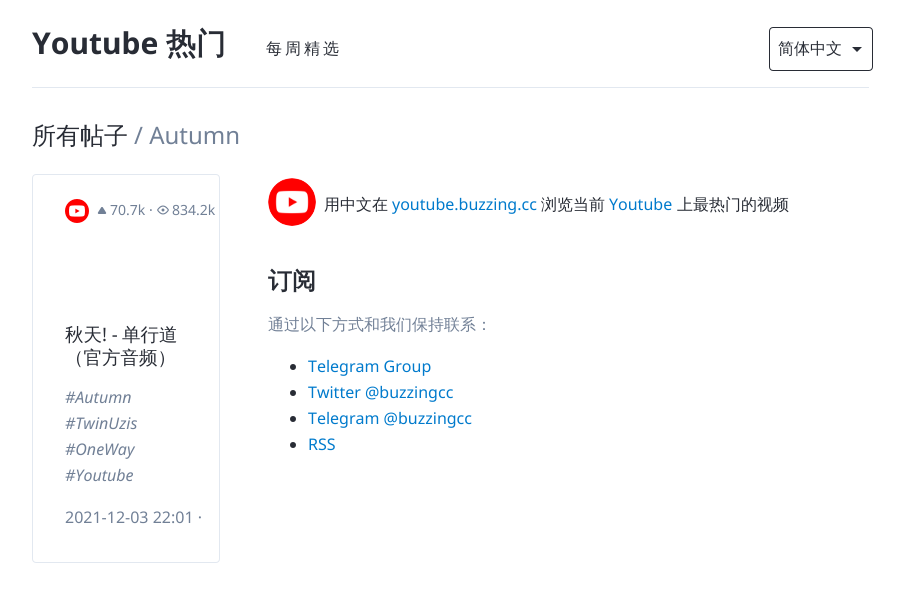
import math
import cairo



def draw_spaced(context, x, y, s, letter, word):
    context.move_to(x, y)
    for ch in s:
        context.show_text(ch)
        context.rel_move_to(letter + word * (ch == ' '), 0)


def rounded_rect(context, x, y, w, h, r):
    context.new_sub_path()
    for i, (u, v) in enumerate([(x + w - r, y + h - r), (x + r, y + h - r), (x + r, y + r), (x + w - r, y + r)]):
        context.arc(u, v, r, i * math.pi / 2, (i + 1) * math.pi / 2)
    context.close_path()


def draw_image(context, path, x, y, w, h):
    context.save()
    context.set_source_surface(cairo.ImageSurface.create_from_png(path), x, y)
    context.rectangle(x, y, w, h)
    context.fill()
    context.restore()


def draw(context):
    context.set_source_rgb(1, 1, 1)
    context.paint()
    context.set_source_rgb(226 / 255, 232 / 255, 240 / 255)
    context.rectangle(32, 87, 837, 1)
    context.fill()
    rounded_rect(context, 769.5, 27.5, 103, 43, 3.5)
    context.set_source_rgb(40 / 255, 44 / 255, 53 / 255)
    context.set_line_width(1)
    context.stroke()
    context.new_path()
    context.move_to(852, 47)
    context.line_to(857, 52)
    context.line_to(862, 47)
    context.close_path()
    context.fill()
    rounded_rect(context, 32.5, 174.5, 187, 388, 3.5)
    context.set_source_rgb(226 / 255, 232 / 255, 240 / 255)
    context.stroke()
    draw_image(context, "images/1.png", 65, 199, 24, 24)
    draw_image(context, "images/2.png", 97, 207, 10, 7)
    draw_image(context, "images/3.png", 157, 205, 12, 10)
    draw_image(context, "images/4.png", 268, 178, 48, 48)
    context.set_source_rgb(40 / 255, 44 / 255, 53 / 255)
    context.arc(293, 367, 3, 0, 2 * math.pi)
    context.fill()
    context.arc(293, 393, 3, 0, 2 * math.pi)
    context.fill()
    context.arc(293, 419, 3, 0, 2 * math.pi)
    context.fill()
    context.arc(293, 445, 3, 0, 2 * math.pi)
    context.fill()
    context.select_font_face("Noto Sans", cairo.FontSlant.NORMAL, cairo.FontWeight.BOLD)
    context.set_font_size(30)
    context.move_to(32, 54)
    context.show_text("Youtube")
    context.select_font_face("WenQuanYi Zen Hei", cairo.FontSlant.NORMAL, cairo.FontWeight.BOLD)
    context.move_to(166, 54)
    context.show_text("热门")
    context.select_font_face("WenQuanYi Zen Hei Medium")
    context.set_font_size(16)
    draw_spaced(context, 266, 54, "每周精选", 3, 0)
    context.move_to(778, 54)
    context.show_text("简体中文")
    context.set_font_size(24)
    context.move_to(32, 144)
    context.show_text("所有帖子")
    context.select_font_face("Noto Sans")
    context.set_source_rgb(113 / 255, 128 / 255, 150 / 255)
    context.move_to(134, 144)
    context.show_text("/ Autumn")
    context.set_font_size(14)
    context.move_to(110, 215)
    context.show_text("70.7k")
    context.move_to(149, 215)
    context.show_text("·")
    context.move_to(172, 215)
    context.show_text("834.2k")
    context.select_font_face("WenQuanYi Zen Hei Medium")
    context.set_font_size(18.5)
    context.set_source_rgb(40 / 255, 44 / 255, 53 / 255)
    context.move_to(65, 341)
    context.show_text("秋天")
    context.select_font_face("Noto Sans")
    context.move_to(102, 341)
    context.show_text("! -")
    context.select_font_face("WenQuanYi Zen Hei Medium")
    context.move_to(122, 341)
    context.show_text("单行道")
    context.move_to(65, 364)
    context.show_text("（官方音频）")
    context.select_font_face("Noto Sans", cairo.FontSlant.ITALIC)
    context.set_font_size(16)
    context.set_source_rgb(113 / 255, 128 / 255, 150 / 255)
    context.move_to(65, 403)
    context.show_text("#Autumn")
    context.move_to(65, 429)
    context.show_text("#TwinUzis")
    context.move_to(65, 455)
    context.show_text("#OneWay")
    context.move_to(65, 481)
    context.show_text("#Youtube")
    context.select_font_face("Noto Sans")
    context.move_to(65, 523)
    context.show_text("2021-12-03 22:01 ·")
    context.select_font_face("WenQuanYi Zen Hei Medium")
    context.set_source_rgb(40 / 255, 44 / 255, 53 / 255)
    context.move_to(324, 210)
    context.show_text("用中文在")
    context.select_font_face("Noto Sans")
    context.set_source_rgb(0, 122 / 255, 204 / 255)
    context.move_to(392, 210)
    context.show_text("youtube.buzzing.cc")
    context.select_font_face("WenQuanYi Zen Hei Medium")
    context.set_source_rgb(40 / 255, 44 / 255, 53 / 255)
    context.move_to(541, 210)
    context.show_text("浏览当前")
    context.select_font_face("Noto Sans")
    context.set_source_rgb(0, 122 / 255, 204 / 255)
    context.move_to(609, 210)
    context.show_text("Youtube")
    context.select_font_face("WenQuanYi Zen Hei Medium")
    context.set_source_rgb(40 / 255, 44 / 255, 53 / 255)
    context.move_to(677, 210)
    context.show_text("上最热门的视频")
    context.select_font_face("WenQuanYi Zen Hei", cairo.FontSlant.NORMAL, cairo.FontWeight.BOLD)
    context.set_font_size(24)
    context.move_to(268, 289)
    context.show_text("订阅")
    context.select_font_face("WenQuanYi Zen Hei Medium")
    context.set_font_size(16)
    context.set_source_rgb(113 / 255, 128 / 255, 150 / 255)
    context.move_to(268, 330)
    context.show_text("通过以下方式和我们保持联系：")
    context.select_font_face("Noto Sans")
    context.set_source_rgb(0, 122 / 255, 204 / 255)
    context.move_to(308, 372)
    context.show_text("Telegram Group")
    context.move_to(308, 398)
    context.show_text("Twitter @buzzingcc")
    context.move_to(308, 424)
    context.show_text("Telegram @buzzingcc")
    context.move_to(308, 450)
    context.show_text("RSS")


surface = cairo.ImageSurface(cairo.Format.RGB24, 901, 594)
context = cairo.Context(surface)
options = cairo.FontOptions()
options.set_hint_metrics(cairo.HintMetrics.OFF)
options.set_hint_style(cairo.HintStyle.NONE)
context.set_font_options(options)
context.set_miter_limit(4)
draw(context)
surface.write_to_png("out.png")
